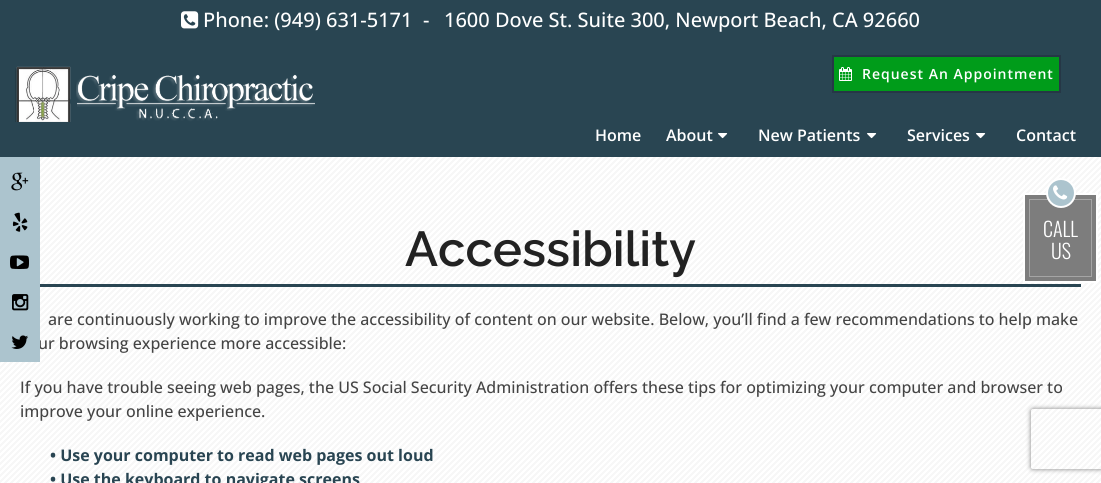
import math
import cairo



def draw_spaced(context, x, y, s, letter, word):
    context.move_to(x, y)
    for ch in s:
        context.show_text(ch)
        context.rel_move_to(letter + word * (ch == ' '), 0)


def rounded_rect(context, x, y, w, h, r):
    context.new_sub_path()
    for i, (u, v) in enumerate([(x + w - r, y + h - r), (x + r, y + h - r), (x + r, y + r), (x + w - r, y + r)]):
        context.arc(u, v, r, i * math.pi / 2, (i + 1) * math.pi / 2)
    context.close_path()


def draw_shadow(context, x, y, w, h, r, blur, alpha):
    context.push_group_with_content(cairo.Content.ALPHA)
    context.set_operator(cairo.Operator.SOURCE)
    for i in range(15, -16, -2):
        e = blur * i / 6
        if min(w, h) + 2 * e > 0:
            context.set_source_rgba(0, 0, 0, alpha * math.erfc((i - 1) / 8.5) / 2)
            rounded_rect(context, x - e, y - e, w + 2 * e, h + 2 * e, max(0, min(r + e + blur * .6, min(w, h) / 2 + e)))
            context.fill()
    context.mask(context.pop_group())


def draw_image(context, path, x, y, w, h):
    context.save()
    context.set_source_surface(cairo.ImageSurface.create_from_png(path), x, y)
    context.rectangle(x, y, w, h)
    context.fill()
    context.restore()


def draw(context):
    context.set_source_rgb(1, 1, 1)
    context.paint()
    draw_image(context, "images/1.png", 0, 157, 1101, 326)
    context.set_source_rgb(41 / 255, 69 / 255, 82 / 255)
    context.rectangle(0, 0, 1101, 157)
    context.fill()
    draw_image(context, "images/7.png", 181, 11, 18, 18)
    draw_image(context, "images/8.png", 15, 66, 300, 56)
    context.set_source_rgb(0, 156 / 255, 26 / 255)
    context.rectangle(833, 56, 227, 36)
    context.fill_preserve()
    context.set_source_rgb(38 / 255, 55 / 255, 70 / 255)
    context.stroke()
    draw_image(context, "images/9.png", 839, 67, 13, 14)
    draw_image(context, "images/10.png", 718, 133, 10, 6)
    draw_image(context, "images/10.png", 867, 133, 10, 6)
    draw_image(context, "images/10.png", 976, 133, 10, 6)
    context.set_source_rgb(125 / 255, 125 / 255, 125 / 255)
    context.rectangle(1024, 194, 73, 88)
    context.fill_preserve()
    context.set_source_rgb(1, 1, 1)
    context.stroke()
    context.rectangle(1029.5, 199.5, 62, 77)
    context.set_source_rgb(165 / 255, 165 / 255, 165 / 255)
    context.set_line_width(1)
    context.stroke()
    context.set_source_rgb(172 / 255, 196 / 255, 206 / 255)
    context.arc(1061, 193, 14, 0, 2 * math.pi)
    context.fill_preserve()
    context.set_source_rgb(1, 1, 1)
    context.set_line_width(2)
    context.stroke()
    draw_image(context, "images/11.png", 1053, 185, 15, 15)
    context.set_source_rgb(41 / 255, 69 / 255, 82 / 255)
    context.rectangle(40, 284, 1041, 3)
    context.fill()
    context.save()
    context.set_fill_rule(cairo.FillRule.EVEN_ODD)
    context.new_path()
    context.move_to(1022, 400)
    context.line_to(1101, 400)
    context.line_to(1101, 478)
    context.line_to(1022, 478)
    context.close_path()
    context.move_to(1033, 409)
    context.line_to(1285, 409)
    context.curve_to(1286, 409, 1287, 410, 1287, 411)
    context.line_to(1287, 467)
    context.curve_to(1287, 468, 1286, 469, 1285, 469)
    context.line_to(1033, 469)
    context.curve_to(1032, 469, 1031, 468, 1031, 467)
    context.line_to(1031, 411)
    context.curve_to(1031, 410, 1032, 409, 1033, 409)
    context.close_path()
    context.clip()
    context.set_source_rgb(128 / 255, 128 / 255, 128 / 255)
    draw_shadow(context, 1031, 409, 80, 60, 2, 2.5, 1)
    context.restore()
    context.select_font_face("Open Sans Medium")
    context.set_font_size(20)
    context.set_source_rgb(1, 1, 1)
    context.move_to(203, 27)
    context.show_text("Phone: (949) 631-5171")
    context.move_to(423, 27)
    context.show_text("-")
    context.move_to(444, 27)
    context.show_text("1600 Dove St. Suite 300, Newport Beach, CA 92660")
    context.select_font_face("Open Sans SemiBold")
    context.set_font_size(14)
    draw_spaced(context, 862, 79, "Request An Appointment", 1, 0)
    context.set_font_size(16)
    context.move_to(595, 141)
    context.show_text("Home")
    context.move_to(666, 141)
    context.show_text("About")
    context.move_to(758, 141)
    context.show_text("New Patients")
    context.move_to(907, 141)
    context.show_text("Services")
    context.move_to(1016, 141)
    context.show_text("Contact")
    context.select_font_face("Oswald Light")
    context.set_font_size(20)
    context.move_to(1043, 237)
    context.show_text("CALL")
    context.move_to(1051, 259)
    context.show_text("US")
    context.select_font_face("Raleway SemiBold")
    context.set_font_size(49)
    context.set_source_rgb(34 / 255, 34 / 255, 34 / 255)
    context.move_to(405, 266)
    context.show_text("Accessibility")
    context.select_font_face("Open Sans Medium")
    context.set_font_size(16)
    context.set_source_rgb(68 / 255, 68 / 255, 68 / 255)
    context.move_to(48, 325)
    context.show_text("are continuously working to improve the accessibility of content on our website. Below, you’ll find a few recommendations to help make")
    context.move_to(38, 349)
    context.show_text("ur browsing experience more accessible:")
    context.set_source_rgb(172 / 255, 196 / 255, 206 / 255)
    context.rectangle(0, 157, 40, 205)
    context.fill()
    draw_image(context, "images/6.png", 11, 335, 17, 14)
    draw_image(context, "images/5.png", 12, 294, 17, 17)
    draw_image(context, "images/4.png", 10, 255, 19, 14)
    draw_image(context, "images/3.png", 12, 212, 16, 20)
    draw_image(context, "images/2.png", 11, 172, 18, 19)
    context.set_source_rgb(68 / 255, 68 / 255, 68 / 255)
    context.move_to(20, 393)
    context.show_text("If you have trouble seeing web pages, the US Social Security Administration offers these tips for optimizing your computer and browser to")
    context.move_to(20, 417)
    context.show_text("improve your online experience.")
    context.select_font_face("Open Sans", cairo.FontSlant.NORMAL, cairo.FontWeight.BOLD)
    context.set_source_rgb(41 / 255, 69 / 255, 82 / 255)
    context.move_to(50, 461)
    context.show_text("• Use your computer to read web pages out loud")
    context.move_to(50, 485)
    context.show_text("• Use the keyboard to navigate screens")


surface = cairo.ImageSurface(cairo.Format.RGB24, 1101, 483)
context = cairo.Context(surface)
options = cairo.FontOptions()
options.set_hint_metrics(cairo.HintMetrics.OFF)
options.set_hint_style(cairo.HintStyle.NONE)
context.set_font_options(options)
context.set_miter_limit(4)
draw(context)
surface.write_to_png("out.png")
